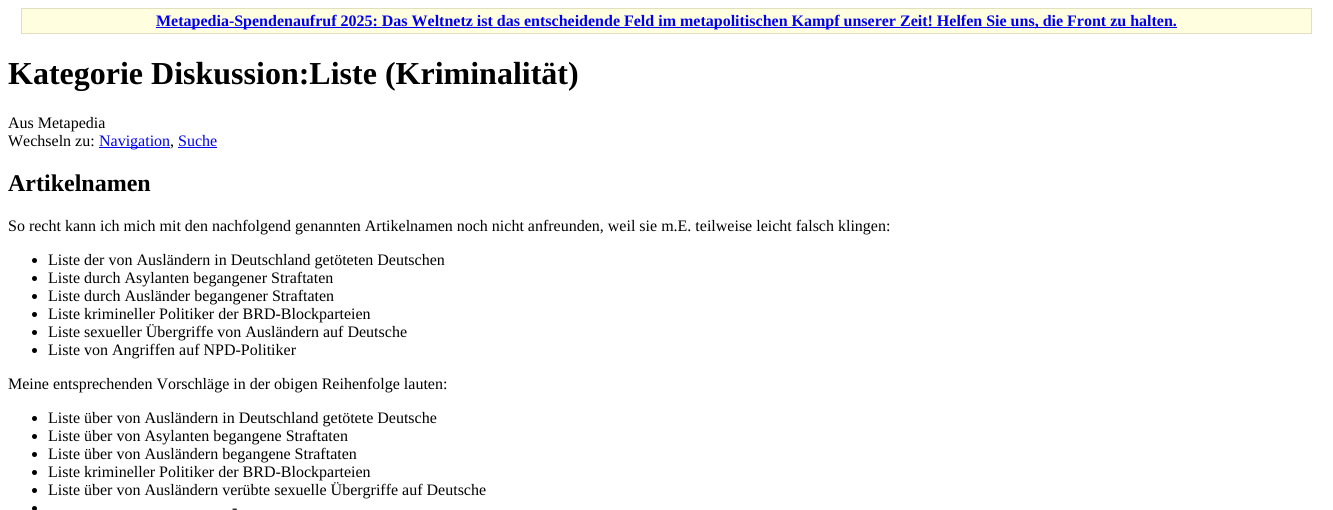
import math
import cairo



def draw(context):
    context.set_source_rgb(1, 1, 1)
    context.paint()
    context.set_source_rgb(1, 1, 224 / 255)
    context.rectangle(21.5, 8.5, 1290, 25)
    context.fill_preserve()
    context.set_source_rgb(224 / 255, 224 / 255, 192 / 255)
    context.set_line_width(1)
    context.stroke()
    context.set_source_rgb(0, 0, 238 / 255)
    context.rectangle(156, 27, 1021, 1)
    context.fill()
    context.rectangle(99, 147, 71, 1)
    context.fill()
    context.rectangle(178, 147, 39, 1)
    context.fill()
    context.set_source_rgb(0, 0, 0)
    context.arc(34.5, 260.5, 2.5, 0, 2 * math.pi)
    context.fill()
    context.arc(34.5, 278.5, 2.5, 0, 2 * math.pi)
    context.fill()
    context.arc(34.5, 296.5, 2.5, 0, 2 * math.pi)
    context.fill()
    context.arc(34.5, 314.5, 2.5, 0, 2 * math.pi)
    context.fill()
    context.arc(34.5, 332.5, 2.5, 0, 2 * math.pi)
    context.fill()
    context.arc(34.5, 350.5, 2.5, 0, 2 * math.pi)
    context.fill()
    context.arc(34.5, 418.5, 2.5, 0, 2 * math.pi)
    context.fill()
    context.arc(34.5, 436.5, 2.5, 0, 2 * math.pi)
    context.fill()
    context.arc(34.5, 454.5, 2.5, 0, 2 * math.pi)
    context.fill()
    context.arc(34.5, 472.5, 2.5, 0, 2 * math.pi)
    context.fill()
    context.arc(34.5, 490.5, 2.5, 0, 2 * math.pi)
    context.fill()
    context.arc(34.5, 508.5, 2.5, 0, 2 * math.pi)
    context.fill()
    context.select_font_face("Liberation Serif", cairo.FontSlant.NORMAL, cairo.FontWeight.BOLD)
    context.set_font_size(16)
    context.set_source_rgb(0, 0, 238 / 255)
    context.move_to(156, 26)
    context.show_text("Metapedia-Spendenaufruf 2025: Das Weltnetz ist das entscheidende Feld im metapolitischen Kampf unserer Zeit! Helfen Sie uns, die Front zu halten.")
    context.set_font_size(32)
    context.set_source_rgb(0, 0, 0)
    context.move_to(8, 84)
    context.show_text("Kategorie Diskussion:Liste (Kriminalität)")
    context.select_font_face("Liberation Serif")
    context.set_font_size(16)
    context.move_to(8, 128)
    context.show_text("Aus Metapedia")
    context.move_to(8, 146)
    context.show_text("Wechseln zu:")
    context.set_source_rgb(0, 0, 238 / 255)
    context.move_to(99, 146)
    context.show_text("Navigation")
    context.set_source_rgb(0, 0, 0)
    context.move_to(170, 146)
    context.show_text(",")
    context.set_source_rgb(0, 0, 238 / 255)
    context.move_to(178, 146)
    context.show_text("Suche")
    context.select_font_face("Liberation Serif", cairo.FontSlant.NORMAL, cairo.FontWeight.BOLD)
    context.set_font_size(24)
    context.set_source_rgb(0, 0, 0)
    context.move_to(8, 191)
    context.show_text("Artikelnamen")
    context.select_font_face("Liberation Serif")
    context.set_font_size(16)
    context.move_to(8, 231)
    context.show_text("So recht kann ich mich mit den nachfolgend genannten Artikelnamen noch nicht anfreunden, weil sie m.E. teilweise leicht falsch klingen:")
    context.move_to(48, 265)
    context.show_text("Liste der von Ausländern in Deutschland getöteten Deutschen")
    context.move_to(48, 283)
    context.show_text("Liste durch Asylanten begangener Straftaten")
    context.move_to(48, 301)
    context.show_text("Liste durch Ausländer begangener Straftaten")
    context.move_to(48, 319)
    context.show_text("Liste krimineller Politiker der BRD-Blockparteien")
    context.move_to(48, 337)
    context.show_text("Liste sexueller Übergriffe von Ausländern auf Deutsche")
    context.move_to(48, 355)
    context.show_text("Liste von Angriffen auf NPD-Politiker")
    context.move_to(8, 389)
    context.show_text("Meine entsprechenden Vorschläge in der obigen Reihenfolge lauten:")
    context.move_to(48, 423)
    context.show_text("Liste über von Ausländern in Deutschland getötete Deutsche")
    context.move_to(48, 441)
    context.show_text("Liste über von Asylanten begangene Straftaten")
    context.move_to(48, 459)
    context.show_text("Liste über von Ausländern begangene Straftaten")
    context.move_to(48, 477)
    context.show_text("Liste krimineller Politiker der BRD-Blockparteien")
    context.move_to(48, 495)
    context.show_text("Liste über von Ausländern verübte sexuelle Übergriffe auf Deutsche")
    context.move_to(232, 513)
    context.show_text("-")


surface = cairo.ImageSurface(cairo.Format.RGB24, 1333, 510)
context = cairo.Context(surface)
options = cairo.FontOptions()
options.set_hint_metrics(cairo.HintMetrics.OFF)
options.set_hint_style(cairo.HintStyle.NONE)
context.set_font_options(options)
context.set_miter_limit(4)
draw(context)
surface.write_to_png("out.png")
